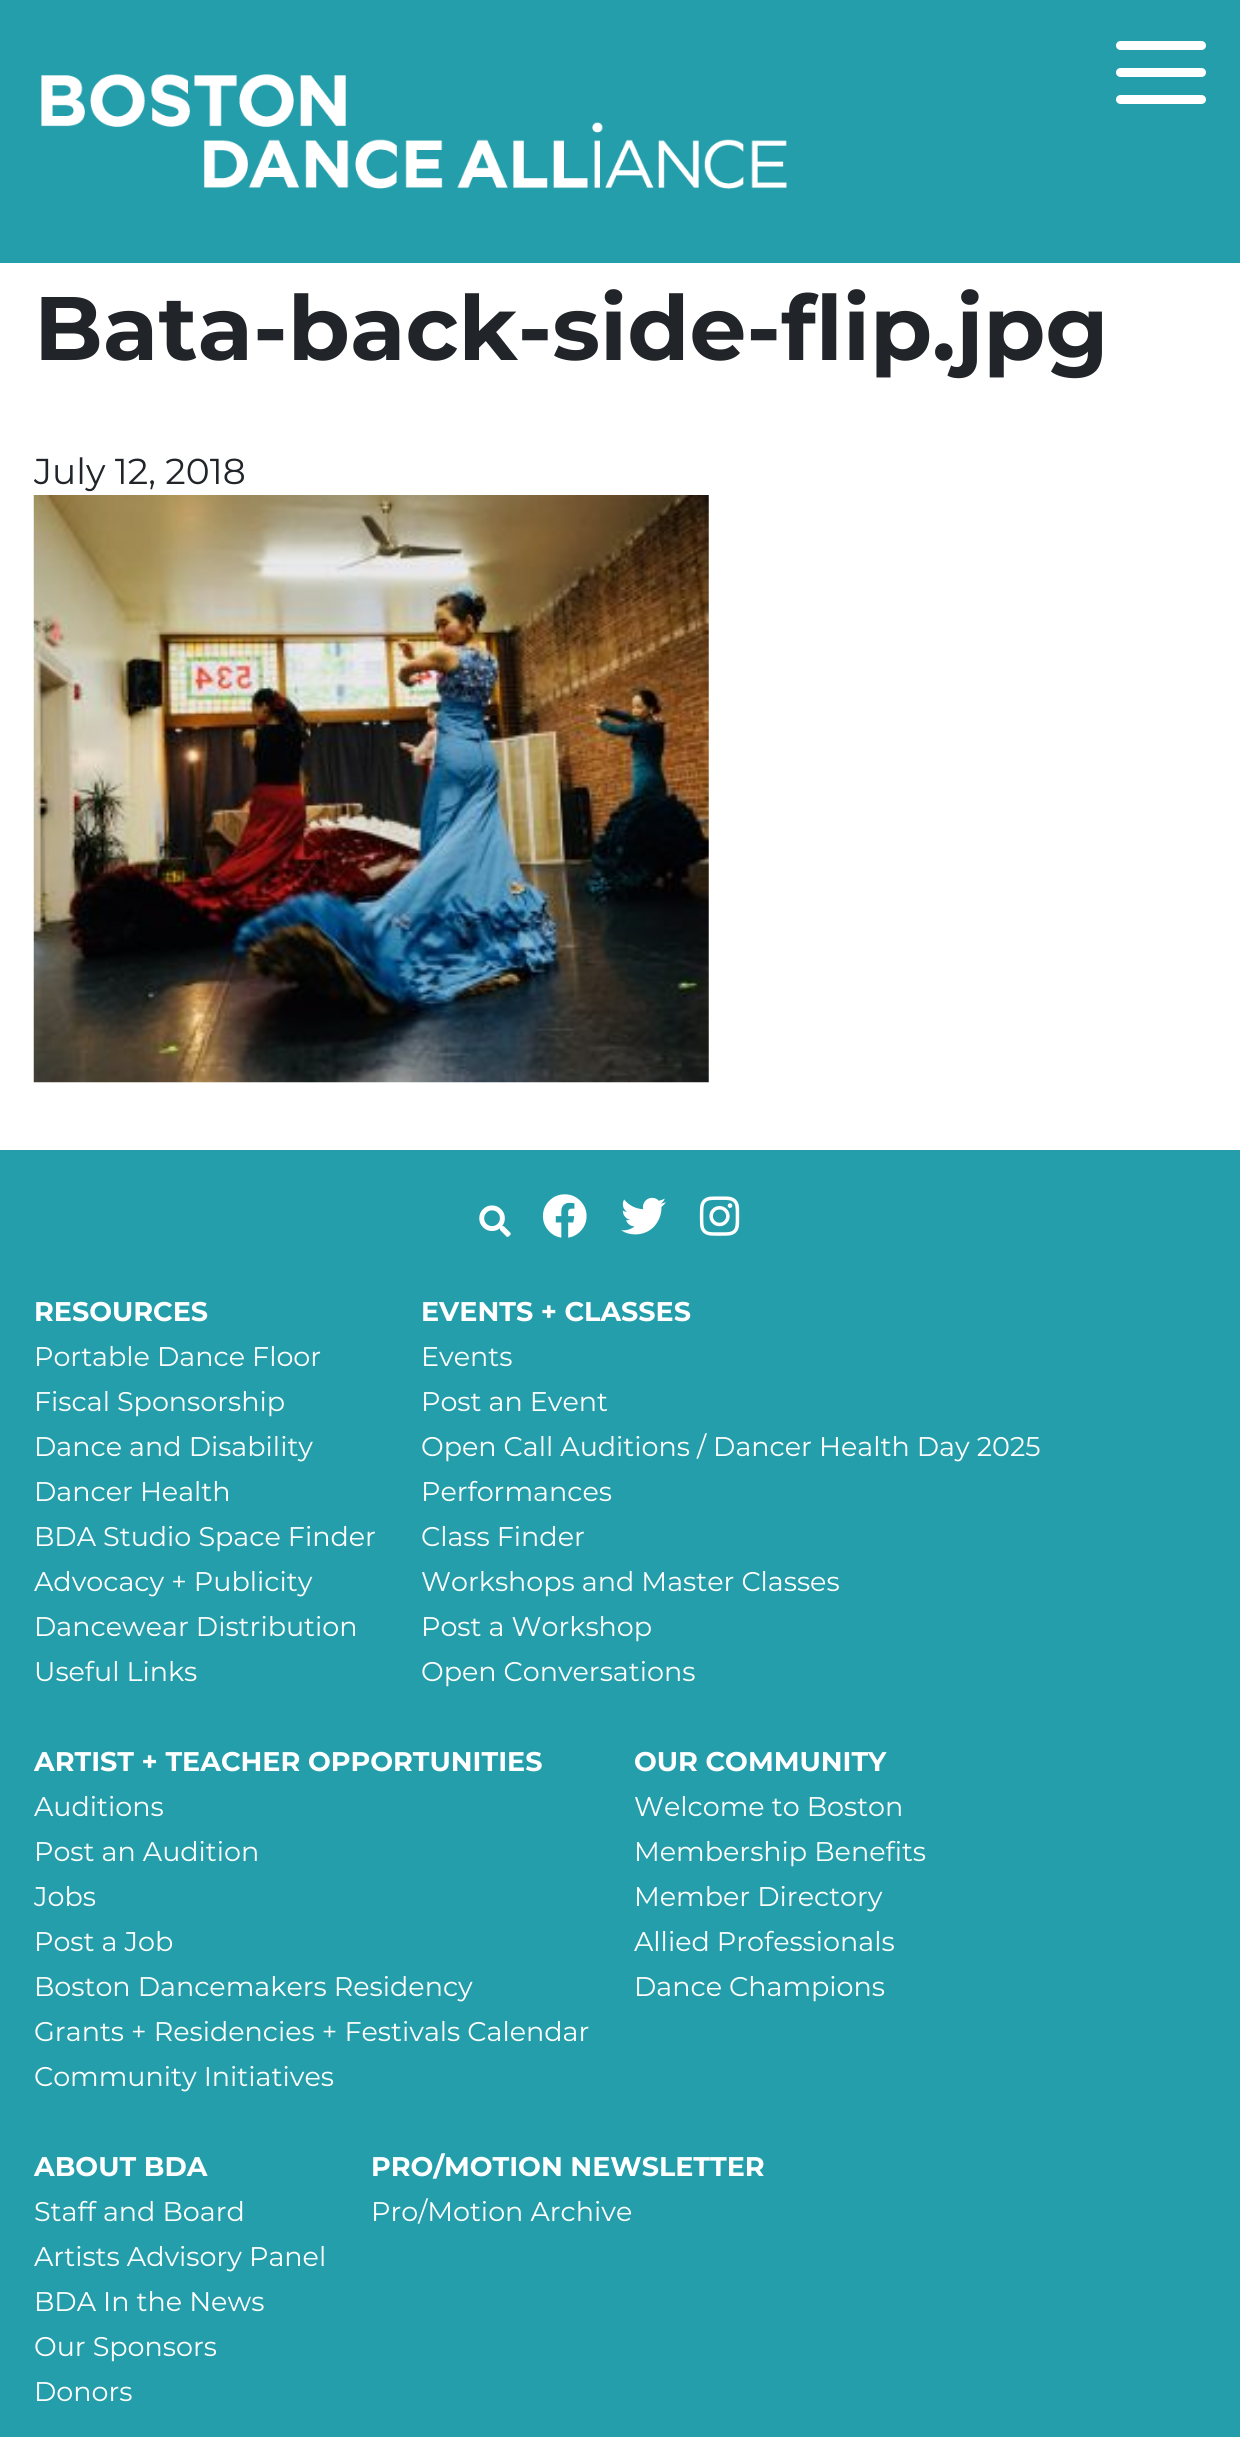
import math
import cairo



def rounded_rect(context, x, y, w, h, r):
    context.new_sub_path()
    for i, (u, v) in enumerate([(x + w - r, y + h - r), (x + r, y + h - r), (x + r, y + r), (x + w - r, y + r)]):
        context.arc(u, v, r, i * math.pi / 2, (i + 1) * math.pi / 2)
    context.close_path()


def draw_image(context, path, x, y, w, h):
    context.save()
    context.set_source_surface(cairo.ImageSurface.create_from_png(path), x, y)
    context.rectangle(x, y, w, h)
    context.fill()
    context.restore()


def draw(context):
    context.set_source_rgb(1, 1, 1)
    context.paint()
    context.set_source_rgb(37 / 255, 158 / 255, 171 / 255)
    context.rectangle(0, 0, 1240, 263)
    context.fill()
    draw_image(context, "images/1.png", 41, 74, 746, 115)
    context.set_source_rgb(1, 1, 1)
    rounded_rect(context, 1116, 41, 90, 9, 4.5)
    context.fill()
    rounded_rect(context, 1116, 68, 90, 9, 4.5)
    context.fill()
    rounded_rect(context, 1116, 95, 90, 9, 4.5)
    context.fill()
    draw_image(context, "images/2.png", 33, 495, 676, 588)
    context.set_source_rgb(37 / 255, 158 / 255, 171 / 255)
    context.rectangle(0, 1150, 1240, 1287)
    context.fill()
    draw_image(context, "images/3.png", 479, 1205, 32, 32)
    draw_image(context, "images/4.png", 542, 1194, 45, 44)
    draw_image(context, "images/5.png", 621, 1197, 45, 38)
    draw_image(context, "images/6.png", 699, 1196, 41, 40)
    context.select_font_face("Montserrat", cairo.FontSlant.NORMAL, cairo.FontWeight.BOLD)
    context.set_font_size(90)
    context.set_source_rgb(33 / 255, 37 / 255, 41 / 255)
    context.move_to(34, 360)
    context.show_text("Bata-back-side-flip.jpg")
    context.select_font_face("Montserrat")
    context.set_font_size(36)
    context.move_to(34, 484)
    context.show_text("July 12, 2018")
    context.select_font_face("Montserrat", cairo.FontSlant.NORMAL, cairo.FontWeight.BOLD)
    context.set_font_size(27)
    context.set_source_rgb(1, 1, 1)
    context.move_to(34, 1321)
    context.show_text("RESOURCES")
    context.select_font_face("Montserrat")
    context.move_to(34, 1366)
    context.show_text("Portable Dance Floor")
    context.move_to(34, 1411)
    context.show_text("Fiscal Sponsorship")
    context.move_to(34, 1456)
    context.show_text("Dance and Disability")
    context.move_to(34, 1501)
    context.show_text("Dancer Health")
    context.move_to(34, 1546)
    context.show_text("BDA Studio Space Finder")
    context.move_to(34, 1591)
    context.show_text("Advocacy + Publicity")
    context.move_to(34, 1636)
    context.show_text("Dancewear Distribution")
    context.move_to(34, 1681)
    context.show_text("Useful Links")
    context.select_font_face("Montserrat", cairo.FontSlant.NORMAL, cairo.FontWeight.BOLD)
    context.move_to(421, 1321)
    context.show_text("EVENTS + CLASSES")
    context.select_font_face("Montserrat")
    context.move_to(421, 1366)
    context.show_text("Events")
    context.move_to(421, 1411)
    context.show_text("Post an Event")
    context.move_to(421, 1456)
    context.show_text("Open Call Auditions / Dancer Health Day 2025")
    context.move_to(421, 1501)
    context.show_text("Performances")
    context.move_to(421, 1546)
    context.show_text("Class Finder")
    context.move_to(421, 1591)
    context.show_text("Workshops and Master Classes")
    context.move_to(421, 1636)
    context.show_text("Post a Workshop")
    context.move_to(421, 1681)
    context.show_text("Open Conversations")
    context.select_font_face("Montserrat", cairo.FontSlant.NORMAL, cairo.FontWeight.BOLD)
    context.move_to(34, 1771)
    context.show_text("ARTIST + TEACHER OPPORTUNITIES")
    context.select_font_face("Montserrat")
    context.move_to(34, 1816)
    context.show_text("Auditions")
    context.move_to(34, 1861)
    context.show_text("Post an Audition")
    context.move_to(34, 1906)
    context.show_text("Jobs")
    context.move_to(34, 1951)
    context.show_text("Post a Job")
    context.move_to(34, 1996)
    context.show_text("Boston Dancemakers Residency")
    context.move_to(34, 2041)
    context.show_text("Grants + Residencies + Festivals Calendar")
    context.move_to(34, 2086)
    context.show_text("Community Initiatives")
    context.select_font_face("Montserrat", cairo.FontSlant.NORMAL, cairo.FontWeight.BOLD)
    context.move_to(634, 1771)
    context.show_text("OUR COMMUNITY")
    context.select_font_face("Montserrat")
    context.move_to(634, 1816)
    context.show_text("Welcome to Boston")
    context.move_to(634, 1861)
    context.show_text("Membership Benefits")
    context.move_to(634, 1906)
    context.show_text("Member Directory")
    context.move_to(634, 1951)
    context.show_text("Allied Professionals")
    context.move_to(634, 1996)
    context.show_text("Dance Champions")
    context.select_font_face("Montserrat", cairo.FontSlant.NORMAL, cairo.FontWeight.BOLD)
    context.move_to(34, 2176)
    context.show_text("ABOUT BDA")
    context.select_font_face("Montserrat")
    context.move_to(34, 2221)
    context.show_text("Staff and Board")
    context.move_to(34, 2266)
    context.show_text("Artists Advisory Panel")
    context.move_to(34, 2311)
    context.show_text("BDA In the News")
    context.move_to(34, 2356)
    context.show_text("Our Sponsors")
    context.move_to(34, 2401)
    context.show_text("Donors")
    context.select_font_face("Montserrat", cairo.FontSlant.NORMAL, cairo.FontWeight.BOLD)
    context.move_to(371, 2176)
    context.show_text("PRO/MOTION NEWSLETTER")
    context.select_font_face("Montserrat")
    context.move_to(371, 2221)
    context.show_text("Pro/Motion Archive")


surface = cairo.ImageSurface(cairo.Format.RGB24, 1240, 2437)
context = cairo.Context(surface)
options = cairo.FontOptions()
options.set_hint_metrics(cairo.HintMetrics.OFF)
options.set_hint_style(cairo.HintStyle.NONE)
context.set_font_options(options)
context.set_miter_limit(4)
draw(context)
surface.write_to_png("out.png")
